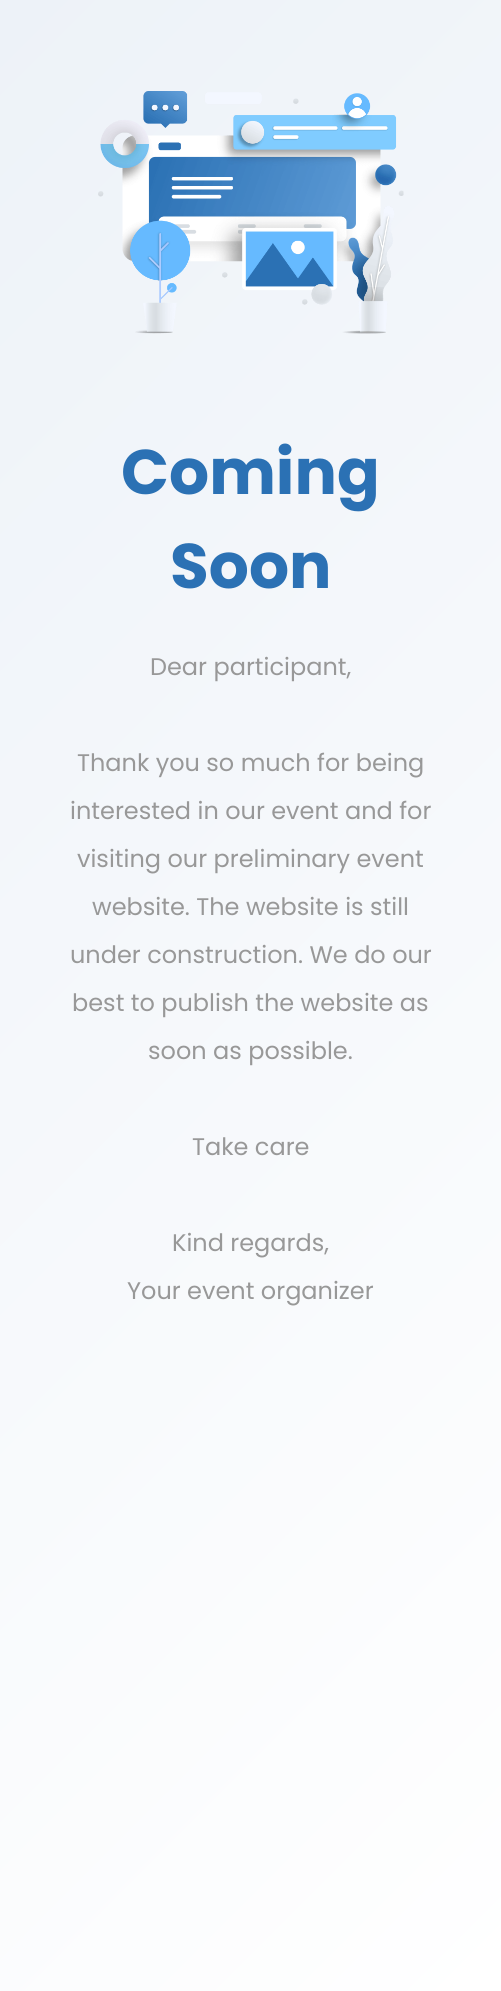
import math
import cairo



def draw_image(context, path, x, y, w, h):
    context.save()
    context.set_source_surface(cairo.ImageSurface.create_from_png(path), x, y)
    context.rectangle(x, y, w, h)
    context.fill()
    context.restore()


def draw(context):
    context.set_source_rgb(1, 1, 1)
    context.paint()
    gradient = cairo.LinearGradient(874, 1619, -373, 373)
    gradient.add_color_stop_rgba(0, 1, 1, 1, 1)
    gradient.add_color_stop_rgba(1, 237 / 255, 242 / 255, 248 / 255, 1)
    context.set_source(gradient)
    context.rectangle(0, 0, 501, 1991)
    context.fill()
    draw_image(context, "images/1.png", 98, 91, 306, 243)
    context.select_font_face("Poppins", cairo.FontSlant.NORMAL, cairo.FontWeight.BOLD)
    context.set_font_size(63)
    context.set_source_rgb(43 / 255, 113 / 255, 180 / 255)
    context.move_to(121, 494)
    context.show_text("Coming")
    context.move_to(170, 588)
    context.show_text("Soon")
    context.select_font_face("Poppins")
    context.set_font_size(24)
    context.set_source_rgb(152 / 255, 152 / 255, 152 / 255)
    context.move_to(150, 675)
    context.show_text("Dear participant,")
    context.move_to(77, 771)
    context.show_text("Thank you so much for being")
    context.move_to(70, 819)
    context.show_text("interested in our event and for")
    context.move_to(77, 867)
    context.show_text("visiting our preliminary event")
    context.move_to(92, 915)
    context.show_text("website. The website is still")
    context.move_to(70, 963)
    context.show_text("under construction. We do our")
    context.move_to(72, 1011)
    context.show_text("best to publish the website as")
    context.move_to(148, 1059)
    context.show_text("soon as possible.")
    context.move_to(192, 1155)
    context.show_text("Take care")
    context.move_to(172, 1251)
    context.show_text("Kind regards,")
    context.move_to(127, 1299)
    context.show_text("Your event organizer")


surface = cairo.ImageSurface(cairo.Format.RGB24, 501, 1991)
context = cairo.Context(surface)
options = cairo.FontOptions()
options.set_hint_metrics(cairo.HintMetrics.OFF)
options.set_hint_style(cairo.HintStyle.NONE)
context.set_font_options(options)
context.set_miter_limit(4)
draw(context)
surface.write_to_png("out.png")
